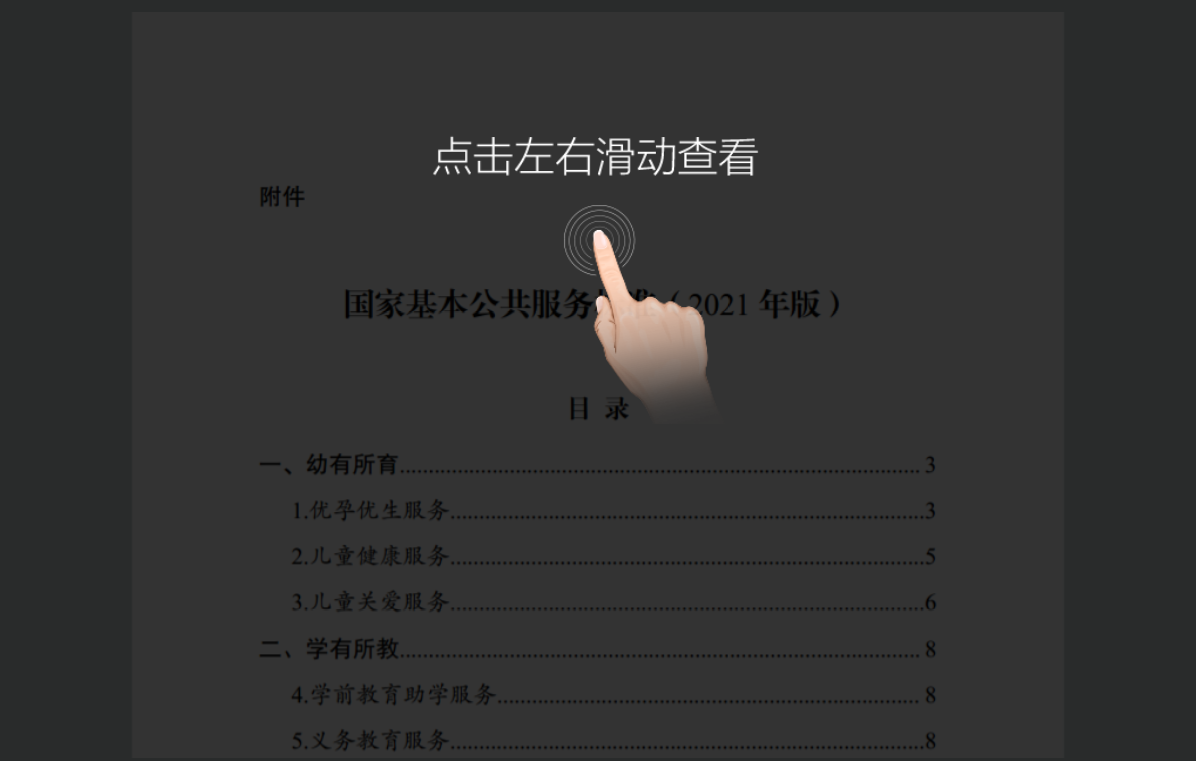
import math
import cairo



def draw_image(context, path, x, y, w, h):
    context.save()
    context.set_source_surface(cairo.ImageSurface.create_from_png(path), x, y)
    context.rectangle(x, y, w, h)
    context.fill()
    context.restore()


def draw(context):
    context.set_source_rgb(41 / 255, 43 / 255, 43 / 255)
    context.paint()
    draw_image(context, "images/1.png", 131, 12, 934, 746)
    draw_image(context, "images/2.png", 432, 135, 327, 289)


surface = cairo.ImageSurface(cairo.Format.RGB24, 1196, 761)
context = cairo.Context(surface)
options = cairo.FontOptions()
options.set_hint_metrics(cairo.HintMetrics.OFF)
options.set_hint_style(cairo.HintStyle.NONE)
context.set_font_options(options)
context.set_miter_limit(4)
draw(context)
surface.write_to_png("out.png")
